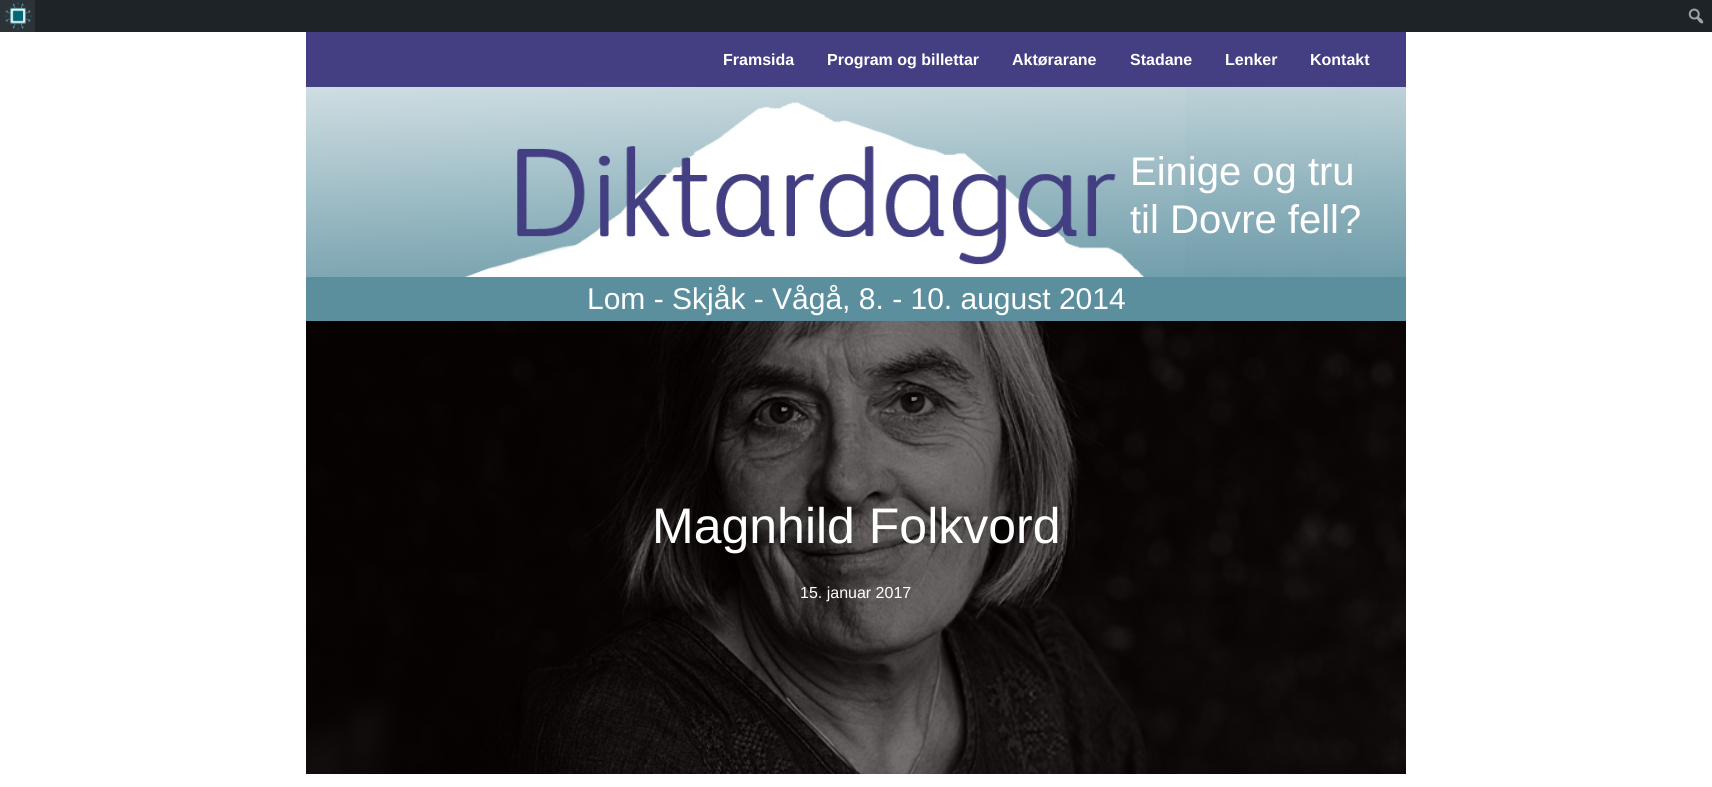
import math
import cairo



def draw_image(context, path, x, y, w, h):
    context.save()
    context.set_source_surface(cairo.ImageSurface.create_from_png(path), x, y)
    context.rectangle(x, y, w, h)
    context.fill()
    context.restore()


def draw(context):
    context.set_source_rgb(1, 1, 1)
    context.paint()
    context.set_source_rgb(29 / 255, 35 / 255, 39 / 255)
    context.rectangle(35, 0, 1677, 32)
    context.fill()
    context.set_source_rgb(44 / 255, 51 / 255, 56 / 255)
    context.rectangle(0, 0, 35, 32)
    context.fill()
    draw_image(context, "images/1.png", 4, 2, 28, 28)
    draw_image(context, "images/2.png", 1688, 8, 16, 16)
    context.set_source_rgb(68 / 255, 63 / 255, 130 / 255)
    context.rectangle(306, 32, 1100, 55)
    context.fill()
    draw_image(context, "images/3.png", 306, 87, 1100, 190)
    context.set_source_rgb(91 / 255, 143 / 255, 158 / 255)
    context.rectangle(306, 277, 1100, 44)
    context.fill()
    draw_image(context, "images/4.png", 306, 321, 1100, 453)
    context.select_font_face("Liberation Sans", cairo.FontSlant.NORMAL, cairo.FontWeight.BOLD)
    context.set_font_size(16)
    context.set_source_rgb(1, 1, 1)
    context.move_to(723, 65)
    context.show_text("Framsida")
    context.move_to(827, 65)
    context.show_text("Program og billettar")
    context.move_to(1012, 65)
    context.show_text("Aktørarane")
    context.move_to(1130, 65)
    context.show_text("Stadane")
    context.move_to(1225, 65)
    context.show_text("Lenker")
    context.move_to(1310, 65)
    context.show_text("Kontakt")
    context.select_font_face("Liberation Sans")
    context.set_font_size(40)
    context.move_to(1130, 185)
    context.show_text("Einige og tru")
    context.move_to(1130, 233)
    context.show_text("til Dovre fell?")
    context.set_font_size(30)
    context.move_to(587, 309)
    context.show_text("Lom - Skjåk - Vågå, 8. - 10. august 2014")
    context.set_font_size(50)
    context.move_to(652, 543)
    context.show_text("Magnhild Folkvord")
    context.set_font_size(16)
    context.move_to(800, 598)
    context.show_text("15. januar 2017")


surface = cairo.ImageSurface(cairo.Format.RGB24, 1712, 787)
context = cairo.Context(surface)
options = cairo.FontOptions()
options.set_hint_metrics(cairo.HintMetrics.OFF)
options.set_hint_style(cairo.HintStyle.NONE)
context.set_font_options(options)
context.set_miter_limit(4)
draw(context)
surface.write_to_png("out.png")
